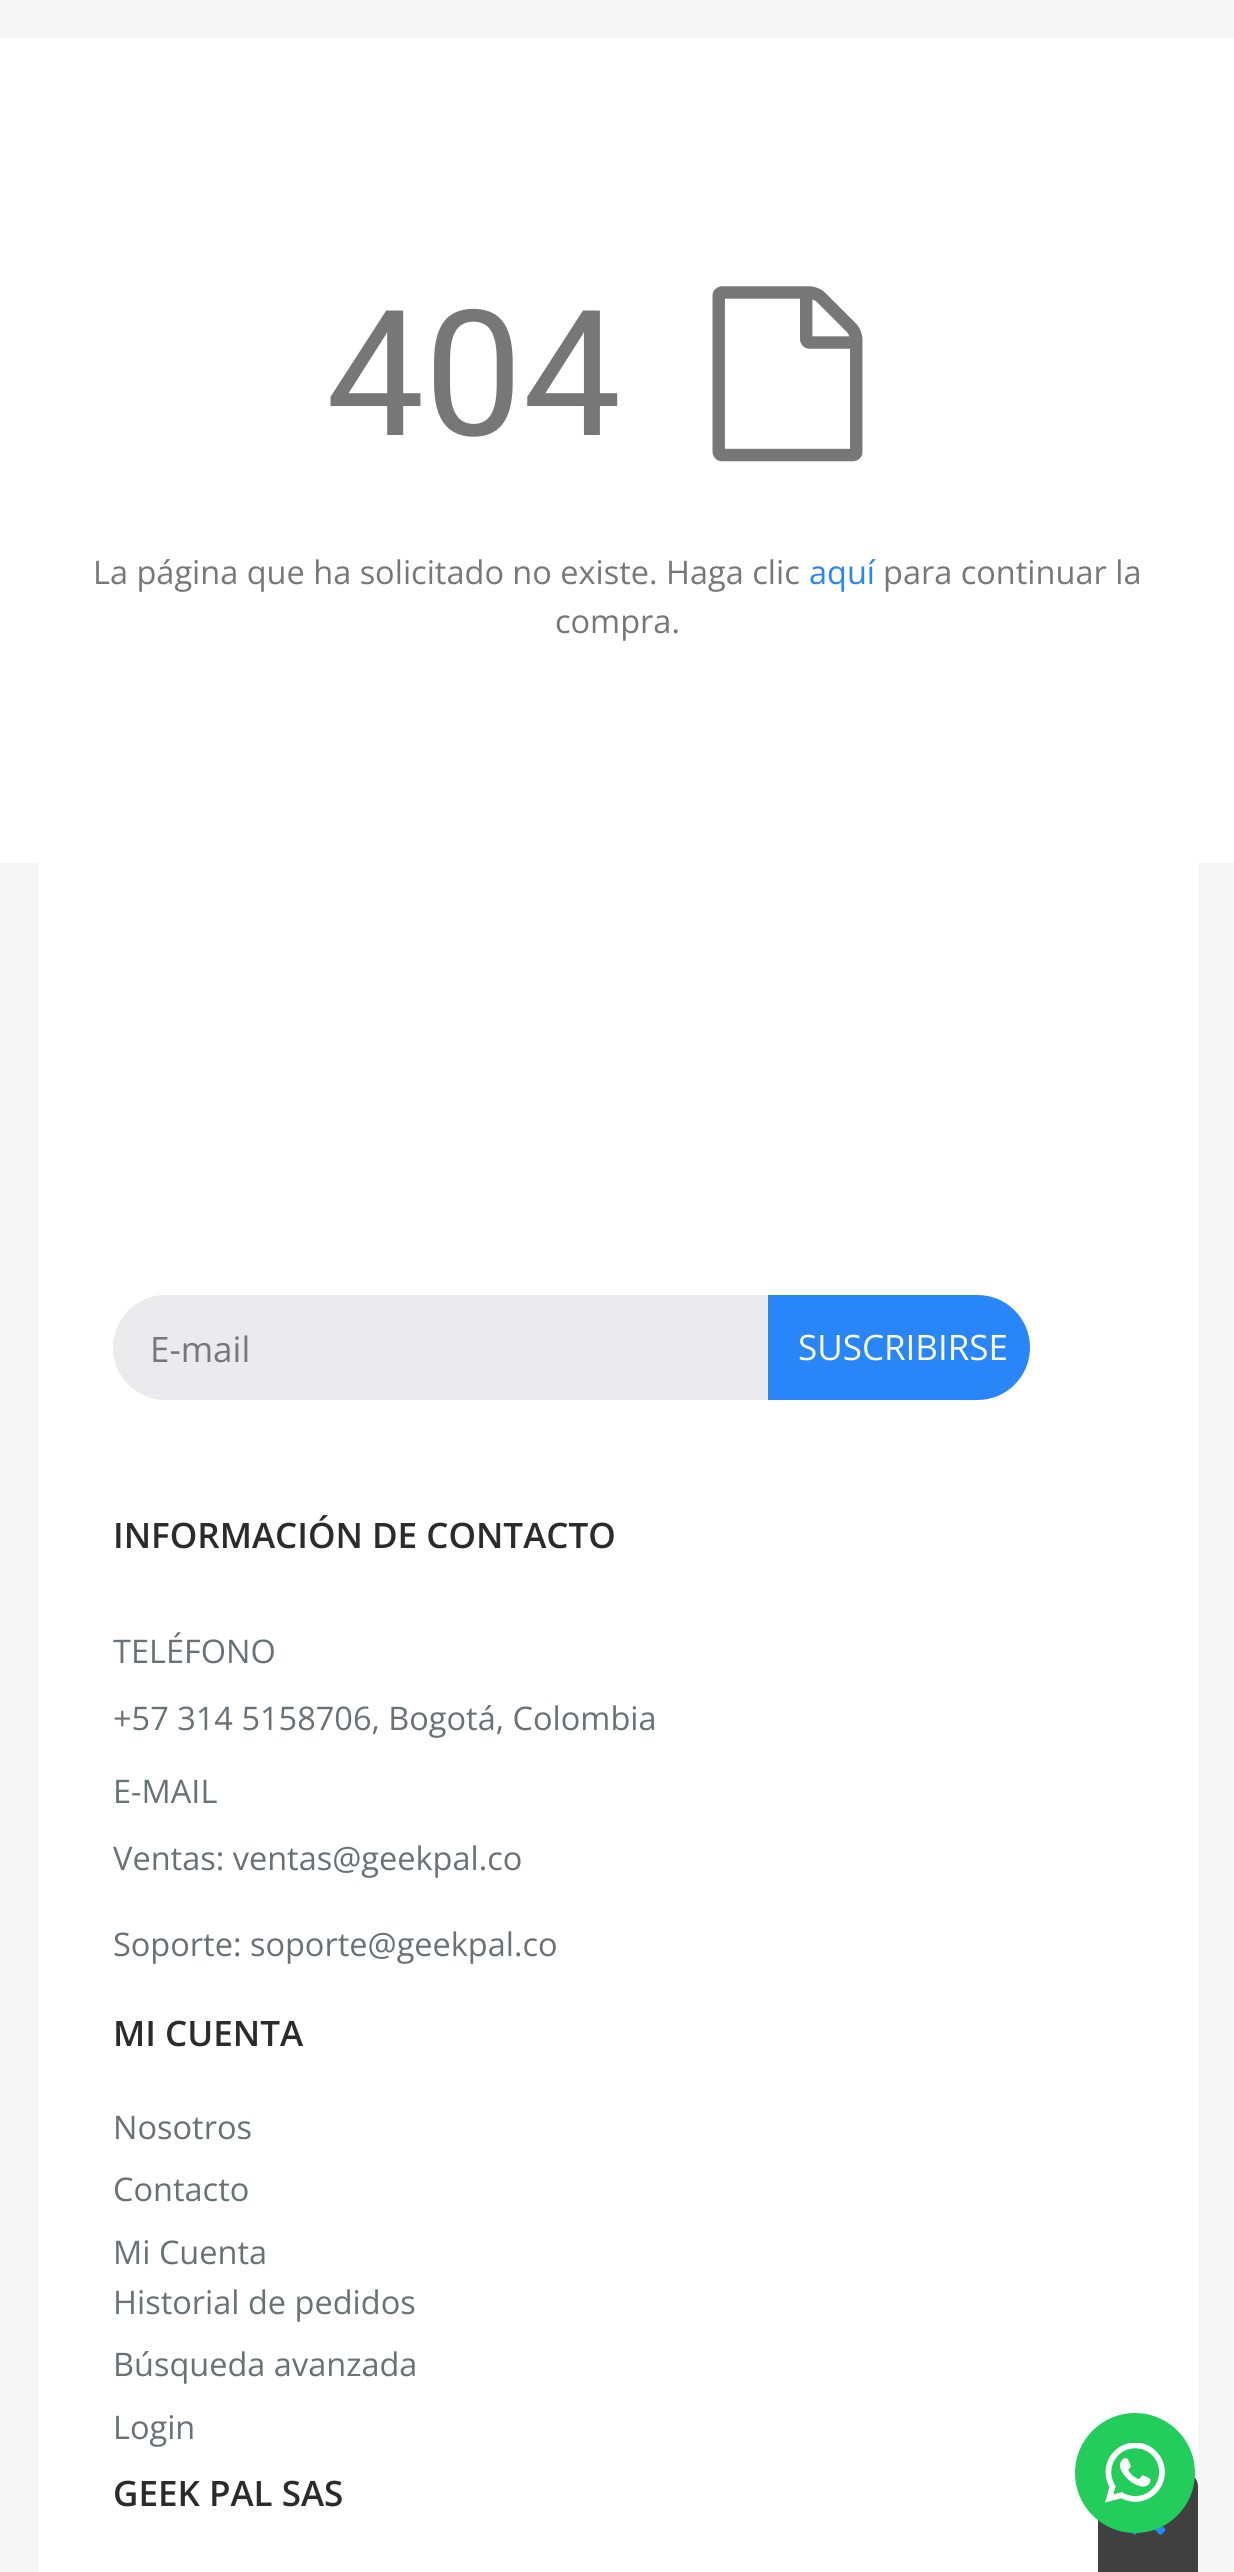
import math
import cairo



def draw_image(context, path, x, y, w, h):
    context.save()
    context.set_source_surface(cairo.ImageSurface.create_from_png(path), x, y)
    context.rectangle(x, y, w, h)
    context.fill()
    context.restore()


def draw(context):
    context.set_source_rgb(1, 1, 1)
    context.paint()
    context.set_source_rgb(246 / 255, 246 / 255, 246 / 255)
    context.rectangle(0, 0, 1234, 38)
    context.fill()
    draw_image(context, "images/1.png", 712, 286, 151, 176)
    context.rectangle(0, 863, 1234, 1709)
    context.fill()
    context.set_source_rgb(1, 1, 1)
    context.rectangle(38, 863, 1160, 1709)
    context.fill()
    context.set_source_rgb(235 / 255, 235 / 255, 238 / 255)
    context.new_path()
    context.move_to(165.5, 1295)
    context.line_to(975, 1295)
    context.line_to(975, 1400)
    context.line_to(165.5, 1400)
    context.curve_to(136.5, 1400, 113, 1376.5, 113, 1347.5)
    context.curve_to(113, 1318.5, 136.5, 1295, 165.5, 1295)
    context.close_path()
    context.fill()
    context.set_source_rgb(40 / 255, 134 / 255, 248 / 255)
    context.new_path()
    context.move_to(768, 1295)
    context.line_to(977.5, 1295)
    context.curve_to(1006.5, 1295, 1030, 1318.5, 1030, 1347.5)
    context.curve_to(1030, 1376.5, 1006.5, 1400, 977.5, 1400)
    context.line_to(768, 1400)
    context.close_path()
    context.fill()
    context.set_source_rgb(64 / 255, 64 / 255, 64 / 255)
    context.new_path()
    context.move_to(1111, 2473)
    context.line_to(1185, 2473)
    context.curve_to(1192, 2473, 1198, 2479, 1198, 2486)
    context.line_to(1198, 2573)
    context.line_to(1098, 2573)
    context.line_to(1098, 2486)
    context.curve_to(1098, 2479, 1104, 2473, 1111, 2473)
    context.close_path()
    context.fill()
    draw_image(context, "images/2.png", 1131, 2526, 35, 9)
    context.set_source_rgb(34 / 255, 205 / 255, 91 / 255)
    context.arc(1135, 2473, 60, 0, 2 * math.pi)
    context.fill()
    draw_image(context, "images/3.png", 1105, 2443, 60, 60)
    context.select_font_face("Heebo")
    context.set_font_size(175)
    context.set_source_rgb(119 / 255, 119 / 255, 119 / 255)
    context.move_to(326, 435)
    context.show_text("404")
    context.select_font_face("Open Sans")
    context.set_font_size(32.5)
    context.move_to(93, 584)
    context.show_text("La página que ha solicitado no existe. Haga clic")
    context.set_source_rgb(40 / 255, 134 / 255, 248 / 255)
    context.move_to(809, 584)
    context.show_text("aquí")
    context.set_source_rgb(119 / 255, 119 / 255, 119 / 255)
    context.move_to(883, 584)
    context.show_text("para continuar la")
    context.move_to(555, 633)
    context.show_text("compra.")
    context.set_font_size(35)
    context.move_to(150, 1362)
    context.show_text("E-mail")
    context.set_source_rgb(1, 1, 1)
    context.move_to(798, 1360)
    context.show_text("SUSCRIBIRSE")
    context.select_font_face("Open Sans SemiBold")
    context.set_source_rgb(43 / 255, 43 / 255, 45 / 255)
    context.move_to(113, 1548)
    context.show_text("INFORMACIÓN DE CONTACTO")
    context.select_font_face("Open Sans")
    context.set_font_size(32.5)
    context.set_source_rgb(104 / 255, 113 / 255, 118 / 255)
    context.move_to(113, 1663)
    context.show_text("TELÉFONO")
    context.move_to(113, 1730)
    context.show_text("+57 314 5158706, Bogotá, Colombia")
    context.move_to(113, 1803)
    context.show_text("E-MAIL")
    context.move_to(113, 1870)
    context.show_text("Ventas: ventas@geekpal.co")
    context.move_to(113, 1956)
    context.show_text("Soporte: soporte@geekpal.co")
    context.select_font_face("Open Sans SemiBold")
    context.set_font_size(35)
    context.set_source_rgb(43 / 255, 43 / 255, 45 / 255)
    context.move_to(113, 2046)
    context.show_text("MI CUENTA")
    context.select_font_face("Open Sans")
    context.set_font_size(32.5)
    context.set_source_rgb(104 / 255, 113 / 255, 118 / 255)
    context.move_to(113, 2139)
    context.show_text("Nosotros")
    context.move_to(113, 2201)
    context.show_text("Contacto")
    context.move_to(113, 2264)
    context.show_text("Mi Cuenta")
    context.move_to(113, 2314)
    context.show_text("Historial de pedidos")
    context.move_to(113, 2376)
    context.show_text("Búsqueda avanzada")
    context.move_to(113, 2439)
    context.show_text("Login")
    context.select_font_face("Open Sans SemiBold")
    context.set_font_size(35)
    context.set_source_rgb(43 / 255, 43 / 255, 45 / 255)
    context.move_to(113, 2506)
    context.show_text("GEEK PAL SAS")


surface = cairo.ImageSurface(cairo.Format.RGB24, 1234, 2572)
context = cairo.Context(surface)
options = cairo.FontOptions()
options.set_hint_metrics(cairo.HintMetrics.OFF)
options.set_hint_style(cairo.HintStyle.NONE)
context.set_font_options(options)
context.set_miter_limit(4)
draw(context)
surface.write_to_png("out.png")
